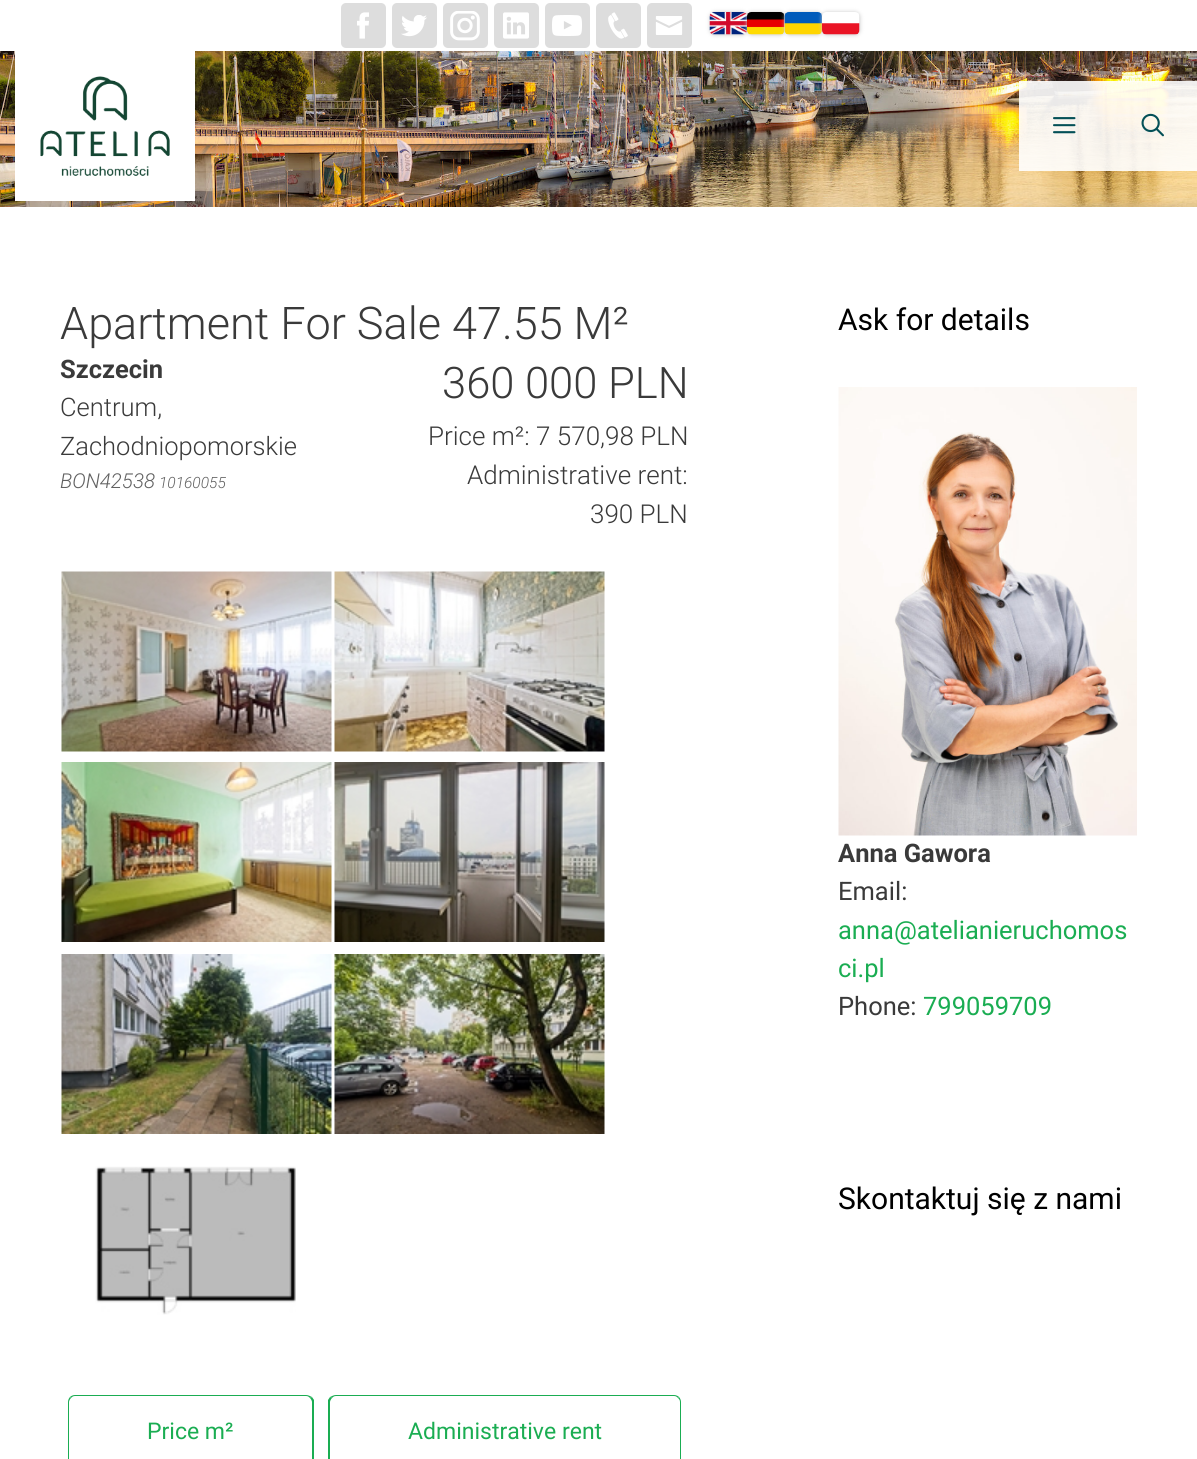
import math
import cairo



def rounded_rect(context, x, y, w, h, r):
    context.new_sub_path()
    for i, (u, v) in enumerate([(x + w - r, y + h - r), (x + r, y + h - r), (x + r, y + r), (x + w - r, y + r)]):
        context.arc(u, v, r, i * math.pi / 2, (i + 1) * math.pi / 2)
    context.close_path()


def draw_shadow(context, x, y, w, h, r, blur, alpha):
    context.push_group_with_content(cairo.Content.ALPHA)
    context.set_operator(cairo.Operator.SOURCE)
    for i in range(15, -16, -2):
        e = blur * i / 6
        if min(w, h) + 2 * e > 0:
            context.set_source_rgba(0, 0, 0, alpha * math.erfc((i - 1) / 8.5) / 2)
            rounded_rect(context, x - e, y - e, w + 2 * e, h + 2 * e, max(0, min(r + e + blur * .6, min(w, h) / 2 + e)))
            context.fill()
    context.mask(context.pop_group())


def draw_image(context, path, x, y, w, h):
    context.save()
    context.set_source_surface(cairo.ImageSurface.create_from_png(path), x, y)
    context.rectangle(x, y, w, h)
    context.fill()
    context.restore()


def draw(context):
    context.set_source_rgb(1, 1, 1)
    context.paint()
    context.set_source_rgb(221 / 255, 221 / 255, 221 / 255)
    rounded_rect(context, 341, 3, 45, 45, 5)
    context.fill()
    draw_image(context, "images/1.png", 357, 12, 12, 27)
    rounded_rect(context, 392, 3, 45, 45, 5)
    context.fill()
    draw_image(context, "images/2.png", 401, 15, 26, 22)
    rounded_rect(context, 443, 3, 45, 45, 5)
    context.fill()
    draw_image(context, "images/3.png", 450, 11, 30, 30)
    rounded_rect(context, 494, 3, 45, 45, 5)
    context.fill()
    draw_image(context, "images/4.png", 503, 12, 26, 27)
    rounded_rect(context, 545, 3, 45, 45, 5)
    context.fill()
    draw_image(context, "images/5.png", 552, 15, 30, 21)
    rounded_rect(context, 596, 3, 45, 45, 5)
    context.fill()
    draw_image(context, "images/6.png", 608, 12, 20, 27)
    rounded_rect(context, 647, 3, 45, 45, 5)
    context.fill()
    draw_image(context, "images/7.png", 655, 16, 28, 19)
    context.set_source_rgb(204 / 255, 204 / 255, 204 / 255)
    draw_shadow(context, 710, 12, 37, 23, 5, 2, 1)
    draw_image(context, "images/8.png", 709, 12, 38, 23)
    draw_shadow(context, 747, 12, 38, 23, 5, 2, 1)
    draw_image(context, "images/9.png", 747, 12, 38, 23)
    draw_shadow(context, 785, 12, 37, 23, 5, 2, 1)
    draw_image(context, "images/10.png", 784, 12, 38, 23)
    draw_shadow(context, 822, 12, 38, 23, 5, 2, 1)
    draw_image(context, "images/11.png", 822, 12, 38, 23)
    draw_image(context, "images/15.png", 0, 51, 1197, 156)
    context.set_source_rgb(1, 1, 1)
    context.rectangle(15, 51, 180, 150)
    context.fill()
    draw_image(context, "images/12.png", 40, 76, 130, 100)
    context.set_source_rgba(1, 1, 1, 0.9)
    context.rectangle(1019, 81, 178, 90)
    context.fill()
    draw_image(context, "images/13.png", 1053, 117, 23, 17)
    draw_image(context, "images/14.png", 1141, 113, 23, 24)
    draw_image(context, "images/16.png", 61, 571, 271, 181)
    draw_image(context, "images/17.png", 334, 571, 271, 181)
    draw_image(context, "images/18.png", 61, 762, 271, 180)
    draw_image(context, "images/19.png", 334, 762, 271, 180)
    draw_image(context, "images/20.png", 61, 954, 271, 180)
    draw_image(context, "images/21.png", 334, 954, 271, 180)
    draw_image(context, "images/22.png", 95, 1166, 201, 149)
    context.set_source_rgb(26 / 255, 173 / 255, 82 / 255)
    context.new_path()
    context.move_to(75, 1395)
    context.curve_to(73, 1395, 71, 1396, 70, 1397)
    context.line_to(71, 1398)
    context.curve_to(72, 1397, 73, 1396, 75, 1396)
    context.line_to(306, 1396)
    context.curve_to(308, 1396, 309, 1397, 310, 1398)
    context.line_to(312, 1397)
    context.curve_to(310, 1396, 308, 1395, 306, 1395)
    context.close_path()
    context.fill()
    context.new_path()
    context.move_to(314, 1400)
    context.line_to(314, 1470)
    context.line_to(312, 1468)
    context.line_to(312, 1402)
    context.curve_to(312, 1401, 311, 1399, 310, 1398)
    context.line_to(312, 1397)
    context.close_path()
    context.fill()
    context.new_path()
    context.move_to(70, 1397)
    context.curve_to(69, 1398, 68, 1400, 68, 1402)
    context.line_to(68, 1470)
    context.line_to(70, 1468)
    context.line_to(69, 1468)
    context.line_to(69, 1402)
    context.curve_to(69, 1401, 70, 1399, 71, 1398)
    context.close_path()
    context.fill()
    context.new_path()
    context.move_to(336, 1395)
    context.curve_to(334, 1395, 332, 1396, 330, 1397)
    context.line_to(332, 1398)
    context.curve_to(333, 1397, 334, 1396, 336, 1396)
    context.line_to(674, 1396)
    context.curve_to(676, 1396, 677, 1397, 678, 1398)
    context.line_to(679, 1397)
    context.curve_to(678, 1396, 676, 1395, 674, 1395)
    context.close_path()
    context.fill()
    context.new_path()
    context.move_to(681, 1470)
    context.line_to(681, 1402)
    context.curve_to(681, 1400, 680, 1398, 679, 1397)
    context.line_to(678, 1398)
    context.curve_to(679, 1399, 680, 1400, 680, 1402)
    context.line_to(680, 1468)
    context.line_to(679, 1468)
    context.close_path()
    context.fill()
    context.new_path()
    context.move_to(328, 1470)
    context.line_to(328, 1400)
    context.line_to(330, 1397)
    context.line_to(332, 1398)
    context.curve_to(331, 1399, 330, 1401, 330, 1402)
    context.line_to(330, 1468)
    context.close_path()
    context.fill()
    draw_image(context, "images/23.png", 838, 387, 299, 449)
    context.select_font_face("Roboto Light")
    context.set_font_size(45)
    context.set_source_rgb(58 / 255, 58 / 255, 58 / 255)
    context.move_to(60, 339)
    context.show_text("Apartment For Sale 47.55 M²")
    context.select_font_face("Roboto", cairo.FontSlant.NORMAL, cairo.FontWeight.BOLD)
    context.set_font_size(25.5)
    context.move_to(60, 378)
    context.show_text("Szczecin")
    context.select_font_face("Roboto Light")
    context.move_to(60, 416)
    context.show_text("Centrum,")
    context.move_to(60, 455)
    context.show_text("Zachodniopomorskie")
    context.select_font_face("Roboto Light", cairo.FontSlant.ITALIC)
    context.set_font_size(20.5)
    context.set_source_rgb(97 / 255, 97 / 255, 97 / 255)
    context.move_to(60, 488)
    context.show_text("BON42538")
    context.set_font_size(15.5)
    context.move_to(159, 488)
    context.show_text("10160055")
    context.select_font_face("Roboto Light")
    context.set_font_size(43.5)
    context.set_source_rgb(58 / 255, 58 / 255, 58 / 255)
    context.move_to(442, 398)
    context.show_text("360 000 PLN")
    context.set_font_size(26)
    context.move_to(428, 445)
    context.show_text("Price m²: 7 570,98 PLN")
    context.move_to(467, 484)
    context.show_text("Administrative rent:")
    context.move_to(590, 523)
    context.show_text("390 PLN")
    context.select_font_face("Roboto")
    context.set_font_size(23)
    context.set_source_rgb(26 / 255, 173 / 255, 82 / 255)
    context.move_to(147, 1439)
    context.show_text("Price m²")
    context.move_to(408, 1439)
    context.show_text("Administrative rent")
    context.set_font_size(30)
    context.set_source_rgb(0, 0, 0)
    context.move_to(838, 330)
    context.show_text("Ask for details")
    context.select_font_face("Roboto", cairo.FontSlant.NORMAL, cairo.FontWeight.BOLD)
    context.set_font_size(25.5)
    context.set_source_rgb(58 / 255, 58 / 255, 58 / 255)
    context.move_to(838, 862)
    context.show_text("Anna Gawora")
    context.select_font_face("Roboto")
    context.move_to(838, 900)
    context.show_text("Email:")
    context.set_source_rgb(26 / 255, 173 / 255, 82 / 255)
    context.move_to(838, 939)
    context.show_text("anna@atelianieruchomos")
    context.move_to(838, 977)
    context.show_text("ci.pl")
    context.set_source_rgb(58 / 255, 58 / 255, 58 / 255)
    context.move_to(838, 1015)
    context.show_text("Phone:")
    context.set_source_rgb(26 / 255, 173 / 255, 82 / 255)
    context.move_to(923, 1015)
    context.show_text("799059709")
    context.set_font_size(30)
    context.set_source_rgb(0, 0, 0)
    context.move_to(838, 1209)
    context.show_text("Skontaktuj się z nami")


surface = cairo.ImageSurface(cairo.Format.RGB24, 1197, 1459)
context = cairo.Context(surface)
options = cairo.FontOptions()
options.set_hint_metrics(cairo.HintMetrics.OFF)
options.set_hint_style(cairo.HintStyle.NONE)
context.set_font_options(options)
context.set_miter_limit(4)
draw(context)
surface.write_to_png("out.png")
